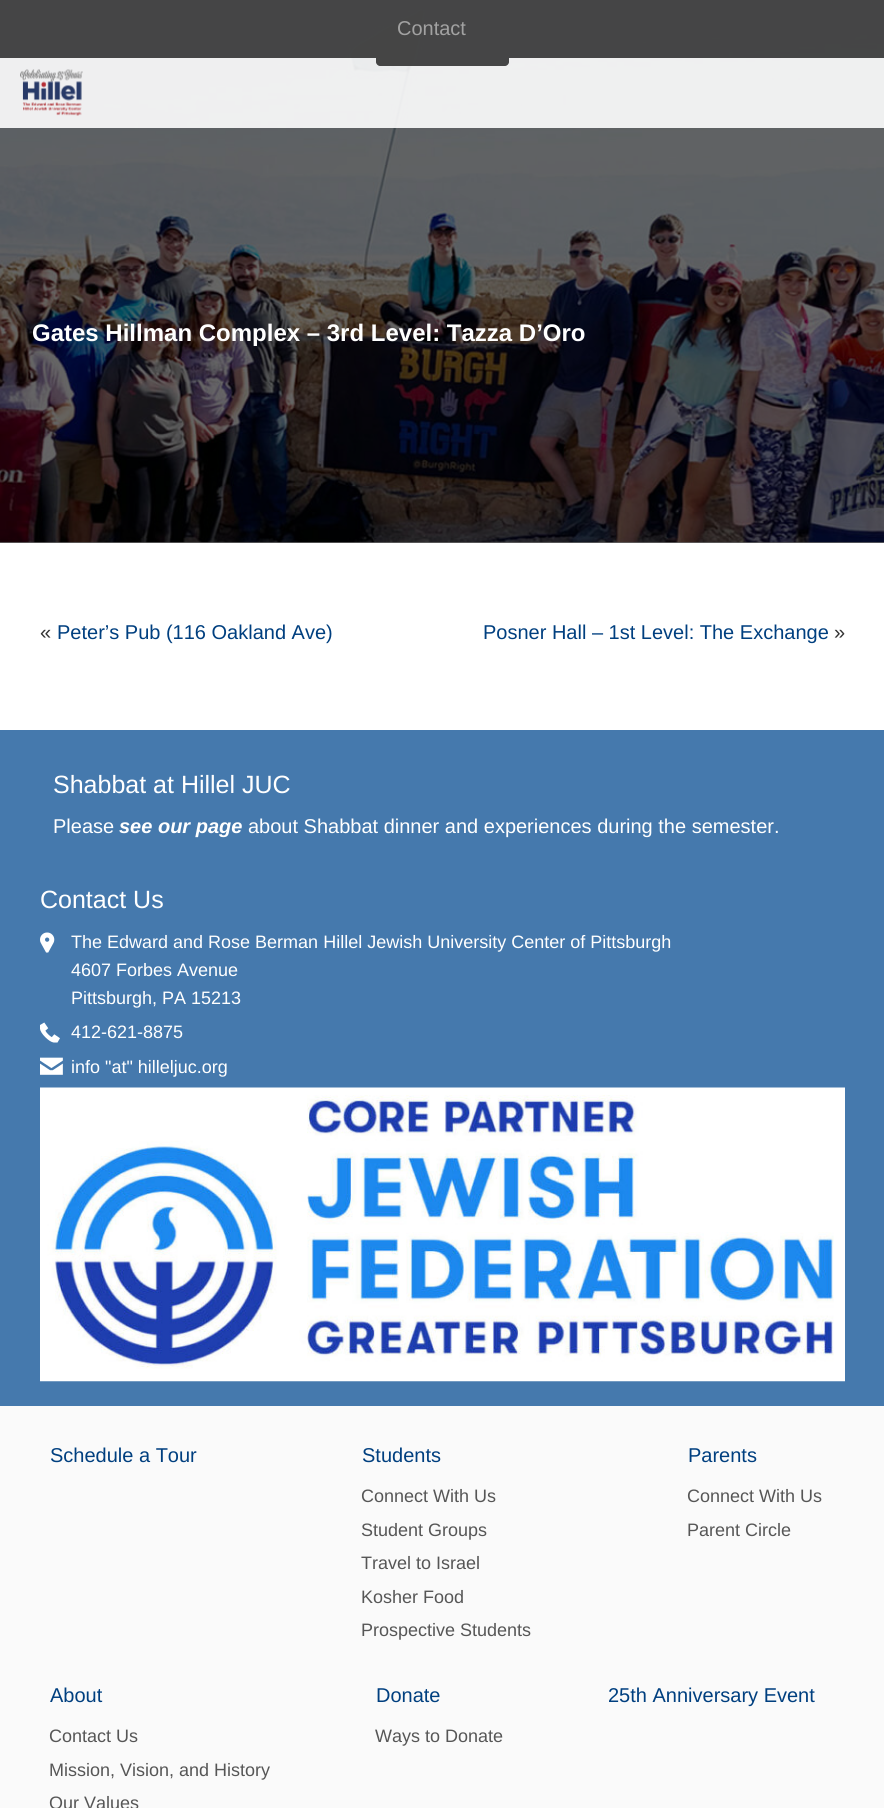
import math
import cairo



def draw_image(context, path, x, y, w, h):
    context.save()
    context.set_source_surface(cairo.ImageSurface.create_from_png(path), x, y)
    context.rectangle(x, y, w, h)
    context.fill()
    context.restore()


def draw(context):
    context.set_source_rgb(1, 1, 1)
    context.paint()
    context.set_source_rgb(102 / 255, 102 / 255, 102 / 255)
    context.rectangle(0, 542, 884, 1)
    context.fill()
    draw_image(context, "images/2.png", 0, 0, 884, 543)
    context.set_source_rgba(1, 1, 1, 0.9)
    context.rectangle(0, 0, 884, 128)
    context.fill()
    context.set_source_rgba(51 / 255, 51 / 255, 51 / 255, 0.9)
    context.rectangle(0, 0, 884, 58)
    context.fill()
    context.new_path()
    context.move_to(376, 58)
    context.line_to(509, 58)
    context.line_to(509, 62)
    context.curve_to(509, 64, 507, 66, 505, 66)
    context.line_to(380, 66)
    context.curve_to(378, 66, 376, 64, 376, 62)
    context.close_path()
    context.fill()
    draw_image(context, "images/1.png", 20, 69, 63, 47)
    context.set_source_rgb(69 / 255, 121 / 255, 173 / 255)
    context.rectangle(0, 730, 884, 676)
    context.fill()
    draw_image(context, "images/3.png", 40, 932, 15, 21)
    draw_image(context, "images/4.png", 40, 1022, 20, 21)
    draw_image(context, "images/5.png", 40, 1057, 23, 18)
    draw_image(context, "images/6.png", 40, 1087, 805, 295)
    context.set_source_rgb(250 / 255, 250 / 255, 250 / 255)
    context.rectangle(0, 1406, 884, 402)
    context.fill()
    context.select_font_face("Liberation Sans")
    context.set_font_size(20)
    context.set_source_rgb(162 / 255, 162 / 255, 162 / 255)
    context.move_to(397, 35)
    context.show_text("Contact")
    context.select_font_face("Liberation Sans", cairo.FontSlant.NORMAL, cairo.FontWeight.BOLD)
    context.set_font_size(24)
    context.set_source_rgb(1, 1, 1)
    context.move_to(32, 341)
    context.show_text("Gates Hillman Complex – 3rd Level: Tazza D’Oro")
    context.select_font_face("Liberation Sans")
    context.set_font_size(20)
    context.set_source_rgb(51 / 255, 51 / 255, 51 / 255)
    context.move_to(40, 639)
    context.show_text("«")
    context.set_source_rgb(0, 63 / 255, 127 / 255)
    context.move_to(57, 639)
    context.show_text("Peter’s Pub (116 Oakland Ave)")
    context.move_to(483, 639)
    context.show_text("Posner Hall – 1st Level: The Exchange")
    context.set_source_rgb(51 / 255, 51 / 255, 51 / 255)
    context.move_to(834, 639)
    context.show_text("»")
    context.set_font_size(25)
    context.set_source_rgb(1, 1, 1)
    context.move_to(53, 793)
    context.show_text("Shabbat at Hillel JUC")
    context.set_font_size(20)
    context.move_to(53, 833)
    context.show_text("Please")
    context.select_font_face("Liberation Sans", cairo.FontSlant.ITALIC, cairo.FontWeight.BOLD)
    context.move_to(119, 833)
    context.show_text("see our page")
    context.select_font_face("Liberation Sans")
    context.move_to(248, 833)
    context.show_text("about Shabbat dinner and experiences during the semester.")
    context.set_font_size(25)
    context.move_to(40, 908)
    context.show_text("Contact Us")
    context.set_font_size(18)
    context.move_to(71, 948)
    context.show_text("The Edward and Rose Berman Hillel Jewish University Center of Pittsburgh")
    context.move_to(71, 976)
    context.show_text("4607 Forbes Avenue")
    context.move_to(71, 1004)
    context.show_text("Pittsburgh, PA 15213")
    context.move_to(71, 1038)
    context.show_text("412-621-8875")
    context.move_to(71, 1073)
    context.show_text("info \"at\" hilleljuc.org")
    context.set_font_size(20)
    context.set_source_rgb(0, 63 / 255, 127 / 255)
    context.move_to(50, 1462)
    context.show_text("Schedule a Tour")
    context.move_to(362, 1462)
    context.show_text("Students")
    context.set_font_size(18)
    context.set_source_rgb(86 / 255, 86 / 255, 86 / 255)
    context.move_to(361, 1502)
    context.show_text("Connect With Us")
    context.move_to(361, 1536)
    context.show_text("Student Groups")
    context.move_to(361, 1569)
    context.show_text("Travel to Israel")
    context.move_to(361, 1603)
    context.show_text("Kosher Food")
    context.move_to(361, 1636)
    context.show_text("Prospective Students")
    context.set_font_size(20)
    context.set_source_rgb(0, 63 / 255, 127 / 255)
    context.move_to(688, 1462)
    context.show_text("Parents")
    context.set_font_size(18)
    context.set_source_rgb(86 / 255, 86 / 255, 86 / 255)
    context.move_to(687, 1502)
    context.show_text("Connect With Us")
    context.move_to(687, 1536)
    context.show_text("Parent Circle")
    context.set_font_size(20)
    context.set_source_rgb(0, 63 / 255, 127 / 255)
    context.move_to(50, 1702)
    context.show_text("About")
    context.set_font_size(18)
    context.set_source_rgb(86 / 255, 86 / 255, 86 / 255)
    context.move_to(49, 1742)
    context.show_text("Contact Us")
    context.move_to(49, 1776)
    context.show_text("Mission, Vision, and History")
    context.move_to(49, 1809)
    context.show_text("Our Values")
    context.set_font_size(20)
    context.set_source_rgb(0, 63 / 255, 127 / 255)
    context.move_to(376, 1702)
    context.show_text("Donate")
    context.set_font_size(18)
    context.set_source_rgb(86 / 255, 86 / 255, 86 / 255)
    context.move_to(375, 1742)
    context.show_text("Ways to Donate")
    context.set_font_size(20)
    context.set_source_rgb(0, 63 / 255, 127 / 255)
    context.move_to(608, 1702)
    context.show_text("25th Anniversary Event")


surface = cairo.ImageSurface(cairo.Format.RGB24, 884, 1808)
context = cairo.Context(surface)
options = cairo.FontOptions()
options.set_hint_metrics(cairo.HintMetrics.OFF)
options.set_hint_style(cairo.HintStyle.NONE)
context.set_font_options(options)
context.set_miter_limit(4)
draw(context)
surface.write_to_png("out.png")
